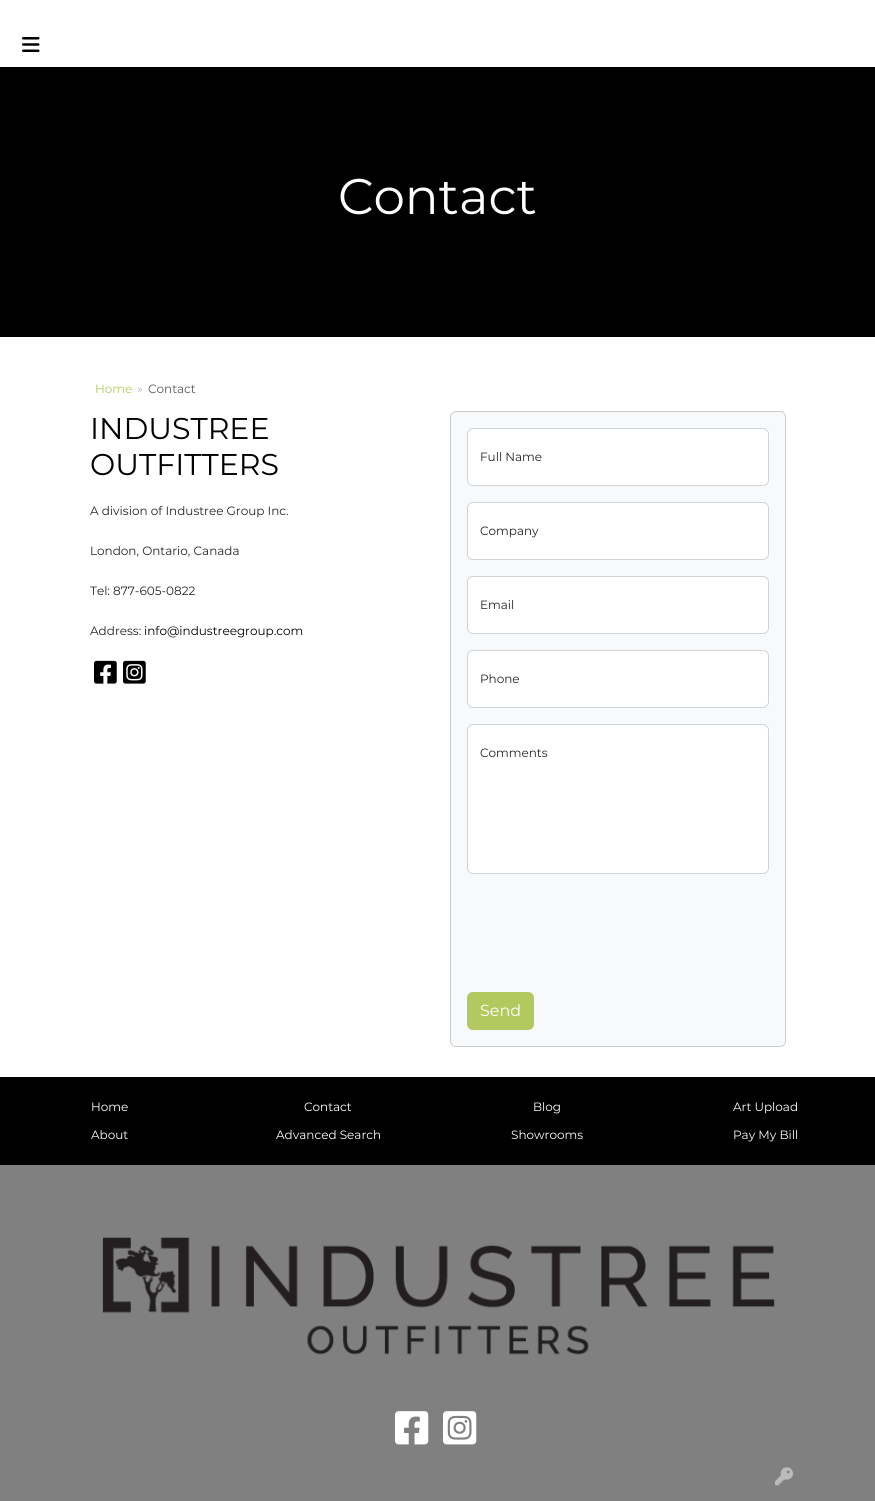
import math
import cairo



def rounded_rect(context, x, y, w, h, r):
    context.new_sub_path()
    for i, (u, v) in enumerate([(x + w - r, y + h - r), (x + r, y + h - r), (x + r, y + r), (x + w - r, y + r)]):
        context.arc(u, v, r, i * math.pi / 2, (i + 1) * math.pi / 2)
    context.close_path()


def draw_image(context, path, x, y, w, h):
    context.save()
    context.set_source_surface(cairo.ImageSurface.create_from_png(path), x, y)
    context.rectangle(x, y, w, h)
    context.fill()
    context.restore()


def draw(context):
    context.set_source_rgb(1, 1, 1)
    context.paint()
    draw_image(context, "images/1.png", 22, 37, 18, 15)
    context.set_source_rgb(0, 0, 0)
    context.rectangle(0, 67, 875, 270)
    context.fill()
    draw_image(context, "images/2.png", 94, 660, 23, 24)
    draw_image(context, "images/3.png", 123, 660, 23, 24)
    context.set_source_rgb(248 / 255, 249 / 255, 250 / 255)
    rounded_rect(context, 450.5, 411.5, 335, 635, 5.5)
    context.fill_preserve()
    context.set_source_rgb(204 / 255, 205 / 255, 206 / 255)
    context.set_line_width(1)
    context.stroke()
    context.set_source_rgb(1, 1, 1)
    rounded_rect(context, 467.5, 428.5, 301, 57, 5.5)
    context.fill_preserve()
    context.set_source_rgb(206 / 255, 212 / 255, 218 / 255)
    context.stroke()
    context.set_source_rgb(1, 1, 1)
    rounded_rect(context, 467.5, 502.5, 301, 57, 5.5)
    context.fill_preserve()
    context.set_source_rgb(206 / 255, 212 / 255, 218 / 255)
    context.stroke()
    context.set_source_rgb(1, 1, 1)
    rounded_rect(context, 467.5, 576.5, 301, 57, 5.5)
    context.fill_preserve()
    context.set_source_rgb(206 / 255, 212 / 255, 218 / 255)
    context.stroke()
    context.set_source_rgb(1, 1, 1)
    rounded_rect(context, 467.5, 650.5, 301, 57, 5.5)
    context.fill_preserve()
    context.set_source_rgb(206 / 255, 212 / 255, 218 / 255)
    context.stroke()
    context.set_source_rgb(1, 1, 1)
    rounded_rect(context, 467.5, 724.5, 301, 149, 5.5)
    context.fill_preserve()
    context.set_source_rgb(206 / 255, 212 / 255, 218 / 255)
    context.stroke()
    context.set_source_rgb(177 / 255, 201 / 255, 95 / 255)
    rounded_rect(context, 467.5, 992.5, 66, 37, 5.5)
    context.fill_preserve()
    context.stroke()
    context.set_source_rgb(0, 0, 0)
    context.rectangle(0, 1077, 875, 88)
    context.fill()
    context.set_source_rgb(128 / 255, 128 / 255, 128 / 255)
    context.rectangle(0, 1165, 875, 336)
    context.fill()
    draw_image(context, "images/4.png", 102, 1237, 673, 118)
    draw_image(context, "images/5.png", 395, 1411, 34, 34)
    draw_image(context, "images/6.png", 443, 1411, 34, 34)
    draw_image(context, "images/7.png", 775, 1467, 18, 19)
    context.select_font_face("Montserrat Thin")
    context.set_font_size(50)
    context.set_source_rgb(1, 1, 1)
    context.move_to(338, 214)
    context.show_text("Contact")
    context.set_font_size(12)
    context.set_source_rgb(177 / 255, 201 / 255, 95 / 255)
    context.move_to(95, 393)
    context.show_text("Home")
    context.set_source_rgb(178 / 255, 177 / 255, 177 / 255)
    context.move_to(137, 393)
    context.show_text("»")
    context.set_source_rgb(91 / 255, 90 / 255, 90 / 255)
    context.move_to(148, 393)
    context.show_text("Contact")
    context.set_font_size(30)
    context.set_source_rgb(0, 0, 0)
    context.move_to(90, 439)
    context.show_text("INDUSTREE")
    context.move_to(90, 475)
    context.show_text("OUTFITTERS")
    context.set_font_size(12)
    context.set_source_rgb(33 / 255, 37 / 255, 41 / 255)
    context.move_to(90, 515)
    context.show_text("A division of Industree Group Inc.")
    context.move_to(90, 555)
    context.show_text("London, Ontario, Canada")
    context.move_to(90, 595)
    context.show_text("Tel: 877-605-0822")
    context.move_to(90, 635)
    context.show_text("Address:")
    context.set_source_rgb(0, 0, 0)
    context.move_to(144, 635)
    context.show_text("info@industreegroup.com")
    context.set_source_rgb(33 / 255, 37 / 255, 41 / 255)
    context.move_to(480, 461)
    context.show_text("Full Name")
    context.move_to(480, 535)
    context.show_text("Company")
    context.move_to(480, 609)
    context.show_text("Email")
    context.move_to(480, 683)
    context.show_text("Phone")
    context.move_to(480, 757)
    context.show_text("Comments")
    context.set_font_size(16)
    context.set_source_rgb(1, 1, 1)
    context.move_to(480, 1016)
    context.show_text("Send")
    context.set_font_size(12)
    context.move_to(91, 1111)
    context.show_text("Home")
    context.move_to(91, 1139)
    context.show_text("About")
    context.move_to(304, 1111)
    context.show_text("Contact")
    context.move_to(276, 1139)
    context.show_text("Advanced Search")
    context.move_to(533, 1111)
    context.show_text("Blog")
    context.move_to(511, 1139)
    context.show_text("Showrooms")
    context.move_to(733, 1111)
    context.show_text("Art Upload")
    context.move_to(733, 1139)
    context.show_text("Pay My Bill")


surface = cairo.ImageSurface(cairo.Format.RGB24, 875, 1501)
context = cairo.Context(surface)
options = cairo.FontOptions()
options.set_hint_metrics(cairo.HintMetrics.OFF)
options.set_hint_style(cairo.HintStyle.NONE)
context.set_font_options(options)
context.set_miter_limit(4)
draw(context)
surface.write_to_png("out.png")
